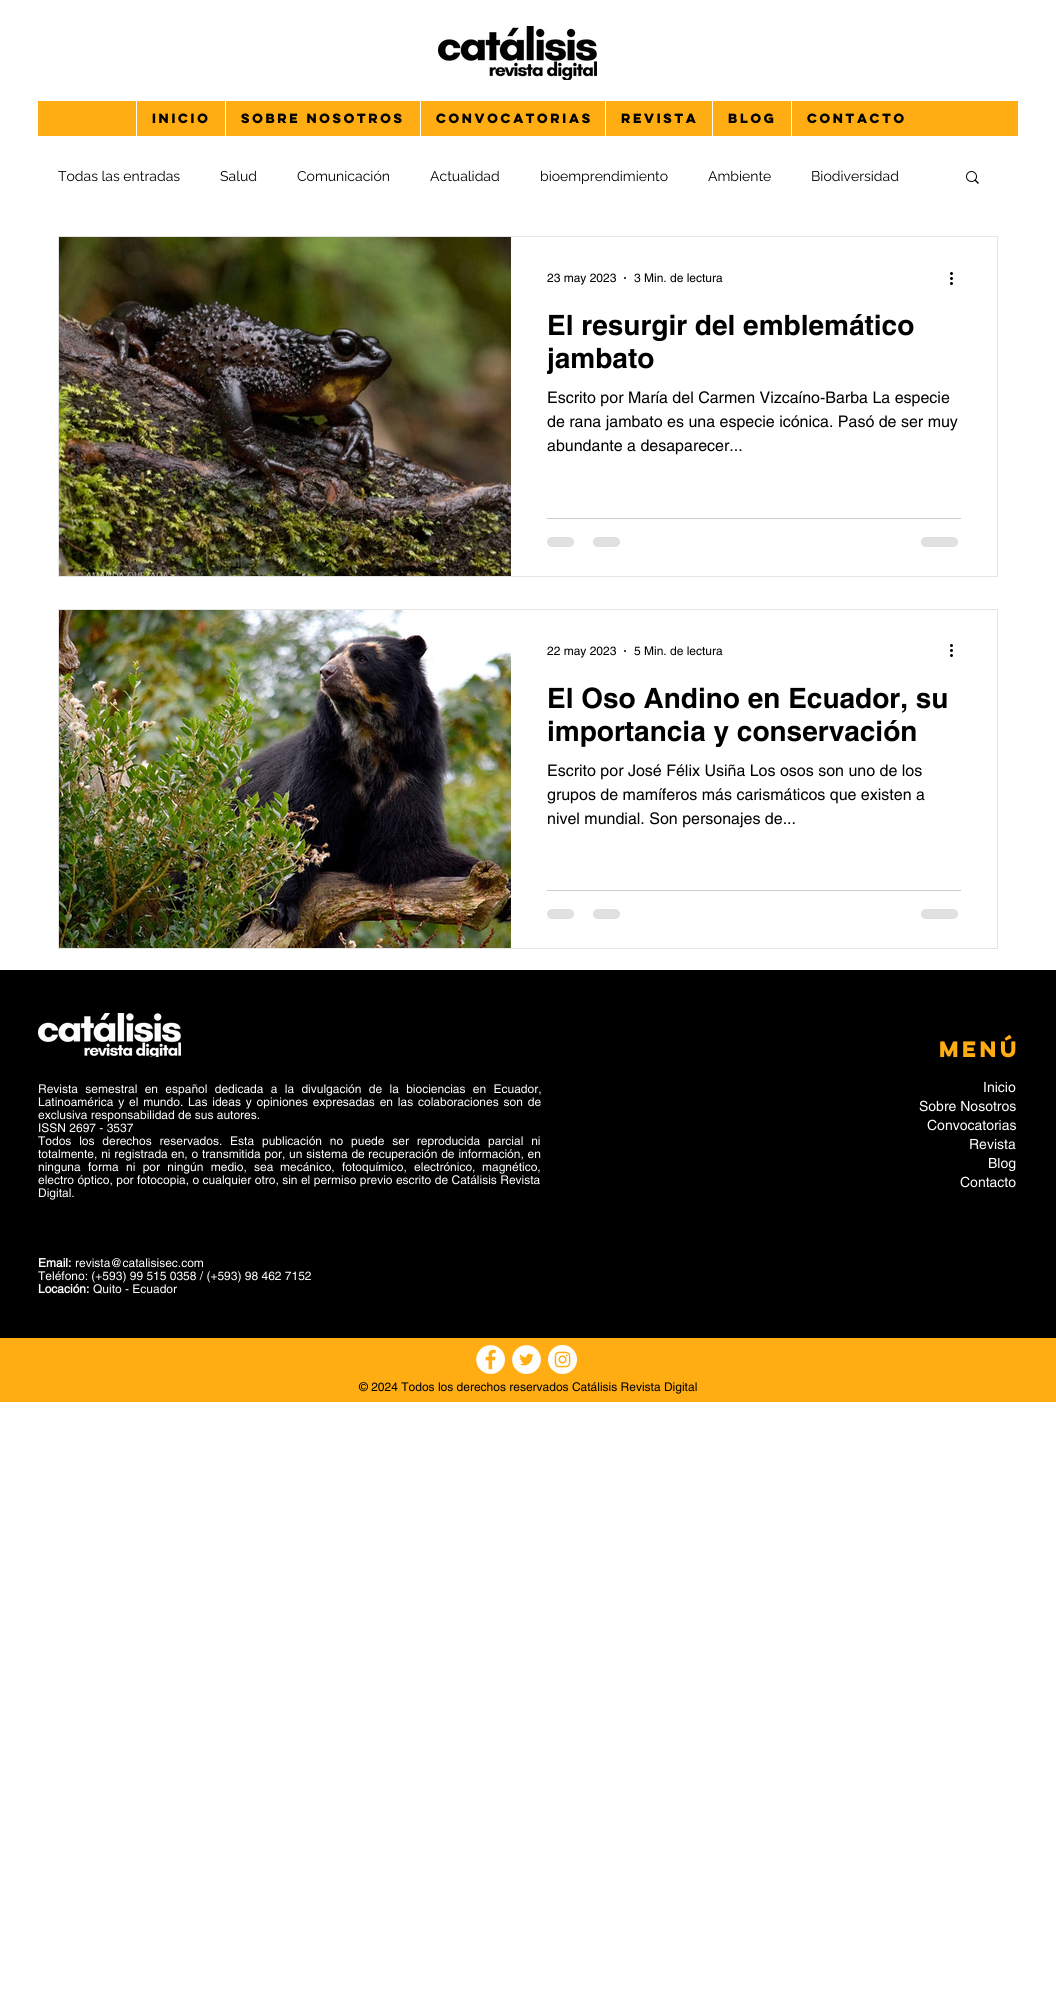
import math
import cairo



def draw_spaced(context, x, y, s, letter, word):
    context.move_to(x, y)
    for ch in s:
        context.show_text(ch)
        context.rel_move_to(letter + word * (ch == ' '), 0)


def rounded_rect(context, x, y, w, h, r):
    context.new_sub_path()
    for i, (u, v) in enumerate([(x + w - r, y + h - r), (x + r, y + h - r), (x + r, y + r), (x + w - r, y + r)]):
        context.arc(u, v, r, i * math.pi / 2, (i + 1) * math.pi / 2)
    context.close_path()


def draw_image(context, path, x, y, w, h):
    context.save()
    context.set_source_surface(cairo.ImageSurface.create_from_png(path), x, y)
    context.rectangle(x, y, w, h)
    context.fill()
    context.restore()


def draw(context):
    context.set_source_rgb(1, 1, 1)
    context.paint()
    draw_image(context, "images/1.png", 438, 26, 159, 54)
    context.set_source_rgb(1, 173 / 255, 18 / 255)
    context.rectangle(38, 101, 980, 35)
    context.fill()
    context.set_source_rgb(1, 1, 1)
    context.rectangle(136, 101, 1, 35)
    context.fill()
    context.rectangle(225, 101, 1, 35)
    context.fill()
    context.rectangle(420, 101, 1, 35)
    context.fill()
    context.rectangle(605, 101, 1, 35)
    context.fill()
    context.rectangle(712, 101, 1, 35)
    context.fill()
    context.rectangle(791, 101, 1, 35)
    context.fill()
    draw_image(context, "images/2.png", 966, 171, 13, 13)
    context.rectangle(58.5, 236.5, 939, 340)
    context.set_source_rgb(229 / 255, 229 / 255, 229 / 255)
    context.set_line_width(1)
    context.stroke()
    draw_image(context, "images/3.png", 59, 237, 452, 339)
    context.set_source_rgb(0, 0, 0)
    context.arc(625, 278, 1, 0, 2 * math.pi)
    context.fill()
    draw_image(context, "images/4.png", 950, 272, 3, 13)
    context.set_source_rgb(204 / 255, 204 / 255, 204 / 255)
    context.rectangle(547, 518, 414, 1)
    context.fill()
    context.set_source_rgb(224 / 255, 224 / 255, 224 / 255)
    rounded_rect(context, 547, 537, 27, 10, 5)
    context.fill()
    rounded_rect(context, 593, 537, 27, 10, 5)
    context.fill()
    rounded_rect(context, 921, 537, 37, 10, 5)
    context.fill()
    context.rectangle(58.5, 609.5, 939, 339)
    context.set_source_rgb(229 / 255, 229 / 255, 229 / 255)
    context.stroke()
    draw_image(context, "images/5.png", 59, 610, 452, 338)
    context.set_source_rgb(0, 0, 0)
    context.arc(625, 651, 1, 0, 2 * math.pi)
    context.fill()
    draw_image(context, "images/4.png", 950, 644, 3, 13)
    context.set_source_rgb(204 / 255, 204 / 255, 204 / 255)
    context.rectangle(547, 890, 414, 1)
    context.fill()
    context.set_source_rgb(224 / 255, 224 / 255, 224 / 255)
    rounded_rect(context, 547, 909, 27, 10, 5)
    context.fill()
    rounded_rect(context, 593, 909, 27, 10, 5)
    context.fill()
    rounded_rect(context, 921, 909, 37, 10, 5)
    context.fill()
    context.set_source_rgb(0, 0, 0)
    context.rectangle(0, 970, 1056, 368)
    context.fill()
    draw_image(context, "images/6.png", 38, 1013, 143, 44)
    context.set_source_rgb(1, 173 / 255, 18 / 255)
    context.rectangle(0, 1338, 1056, 64)
    context.fill()
    draw_image(context, "images/7.png", 476, 1345, 29, 29)
    draw_image(context, "images/8.png", 512, 1345, 29, 29)
    draw_image(context, "images/9.png", 548, 1345, 29, 29)
    context.select_font_face("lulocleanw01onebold", cairo.FontSlant.NORMAL, cairo.FontWeight.BOLD)
    context.set_font_size(12)
    context.set_source_rgb(0, 0, 0)
    context.move_to(152, 123)
    context.show_text("Inicio")
    context.move_to(241, 123)
    context.show_text("Sobre Nosotros")
    context.move_to(436, 123)
    context.show_text("Convocatorias")
    context.move_to(621, 123)
    context.show_text("Revista")
    context.move_to(728, 123)
    context.show_text("Blog")
    context.move_to(807, 123)
    context.show_text("Contacto")
    context.select_font_face("Raleway")
    context.set_font_size(14)
    context.move_to(58, 181)
    context.show_text("Todas las entradas")
    context.move_to(220, 181)
    context.show_text("Salud")
    context.move_to(297, 181)
    context.show_text("Comunicación")
    context.move_to(430, 181)
    context.show_text("Actualidad")
    context.move_to(540, 181)
    context.show_text("bioemprendimiento")
    context.move_to(708, 181)
    context.show_text("Ambiente")
    context.move_to(811, 181)
    context.show_text("Biodiversidad")
    context.select_font_face("helvetica")
    context.set_font_size(12)
    context.move_to(547, 282)
    context.show_text("23 may 2023")
    context.move_to(634, 282)
    context.show_text("3 Min. de lectura")
    context.select_font_face("helvetica", cairo.FontSlant.NORMAL, cairo.FontWeight.BOLD)
    context.set_font_size(28)
    context.move_to(547, 335)
    context.show_text("El resurgir del emblemático")
    context.move_to(547, 368)
    context.show_text("jambato")
    context.select_font_face("helvetica")
    context.set_font_size(16)
    context.move_to(547, 403)
    context.show_text("Escrito por María del Carmen Vizcaíno-Barba La especie")
    context.move_to(547, 427)
    context.show_text("de rana jambato es una especie icónica. Pasó de ser muy")
    context.move_to(547, 451)
    context.show_text("abundante a desaparecer...")
    context.set_font_size(12)
    context.move_to(547, 655)
    context.show_text("22 may 2023")
    context.move_to(634, 655)
    context.show_text("5 Min. de lectura")
    context.select_font_face("helvetica", cairo.FontSlant.NORMAL, cairo.FontWeight.BOLD)
    context.set_font_size(28)
    context.move_to(547, 708)
    context.show_text("El Oso Andino en Ecuador, su")
    context.move_to(547, 741)
    context.show_text("importancia y conservación")
    context.select_font_face("helvetica")
    context.set_font_size(16)
    context.move_to(547, 776)
    context.show_text("Escrito por José Félix Usiña Los osos son uno de los")
    context.move_to(547, 800)
    context.show_text("grupos de mamíferos más carismáticos que existen a")
    context.move_to(547, 824)
    context.show_text("nivel mundial. Son personajes de...")
    context.select_font_face("lulocleanw01onebold", cairo.FontSlant.NORMAL, cairo.FontWeight.BOLD)
    context.set_font_size(20)
    context.set_source_rgb(1, 173 / 255, 18 / 255)
    draw_spaced(context, 939, 1057, "menú", -1, 0)
    context.select_font_face("helvetica")
    context.set_font_size(12)
    context.set_source_rgb(1, 1, 254 / 255)
    draw_spaced(context, 38, 1093, "Revista semestral en español dedicada a la divulgación de la biociencias en Ecuador,", 0, 4)
    draw_spaced(context, 38, 1106, "Latinoamérica y el mundo. Las ideas y opiniones expresadas en las colaboraciones son de", 0, 1.5)
    context.move_to(38, 1119)
    context.show_text("exclusiva responsabilidad de sus autores.")
    context.move_to(38, 1132)
    context.show_text("ISSN 2697 - 3537")
    draw_spaced(context, 38, 1145, "Todos los derechos reservados. Esta", 0, 4.5)
    draw_spaced(context, 262, 1145, "publicación no puede ser reproducida", 0, 4.5)
    draw_spaced(context, 488, 1145, "parcial ni", 0, 4.5)
    draw_spaced(context, 38, 1158, "totalmente, ni registrada", 0, 0.5)
    draw_spaced(context, 171, 1158, "en, o transmitida por, un sistema de", 0, 0.5)
    draw_spaced(context, 368, 1158, "recuperación de información, en", 0, 0.5)
    context.move_to(38, 1171)
    context.show_text("ninguna")
    draw_spaced(context, 88, 1171, "forma ni por ningún medio, sea", 0, 4)
    draw_spaced(context, 280, 1171, "mecánico, fotoquímico, electrónico,", 0, 4)
    context.move_to(482, 1171)
    context.show_text("magnético,")
    draw_spaced(context, 38, 1184, "electro óptico, por fotocopia, o cualquier otro, sin el permiso previo escrito de Catálisis Revista", 0, 0.1)
    context.move_to(38, 1197)
    context.show_text("Digital.")
    context.set_font_size(14)
    context.move_to(983, 1092)
    context.show_text("Inicio")
    context.move_to(919, 1111)
    context.show_text("Sobre Nosotros")
    context.move_to(927, 1130)
    context.show_text("Convocatorias")
    context.move_to(969, 1149)
    context.show_text("Revista")
    context.move_to(988, 1168)
    context.show_text("Blog")
    context.move_to(960, 1187)
    context.show_text("Contacto")
    context.select_font_face("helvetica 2", cairo.FontSlant.NORMAL, cairo.FontWeight.BOLD)
    context.set_font_size(12)
    context.move_to(38, 1267)
    context.show_text("Email:")
    context.select_font_face("helvetica")
    context.move_to(75, 1267)
    context.show_text("revista@catalisisec.com")
    context.move_to(38, 1280)
    context.show_text("Teléfono: (+593) 99 515 0358 / (+593) 98 462 7152")
    context.select_font_face("helvetica 2", cairo.FontSlant.NORMAL, cairo.FontWeight.BOLD)
    context.move_to(38, 1293)
    context.show_text("Locación:")
    context.select_font_face("helvetica")
    context.move_to(93, 1293)
    context.show_text("Quito - Ecuador")
    context.set_source_rgb(0, 0, 0)
    context.move_to(359, 1391)
    context.show_text("© 2024 Todos los derechos reservados Catálisis Revista Digital")


surface = cairo.ImageSurface(cairo.Format.RGB24, 1056, 2009)
context = cairo.Context(surface)
options = cairo.FontOptions()
options.set_hint_metrics(cairo.HintMetrics.OFF)
options.set_hint_style(cairo.HintStyle.NONE)
context.set_font_options(options)
context.set_miter_limit(4)
draw(context)
surface.write_to_png("out.png")
